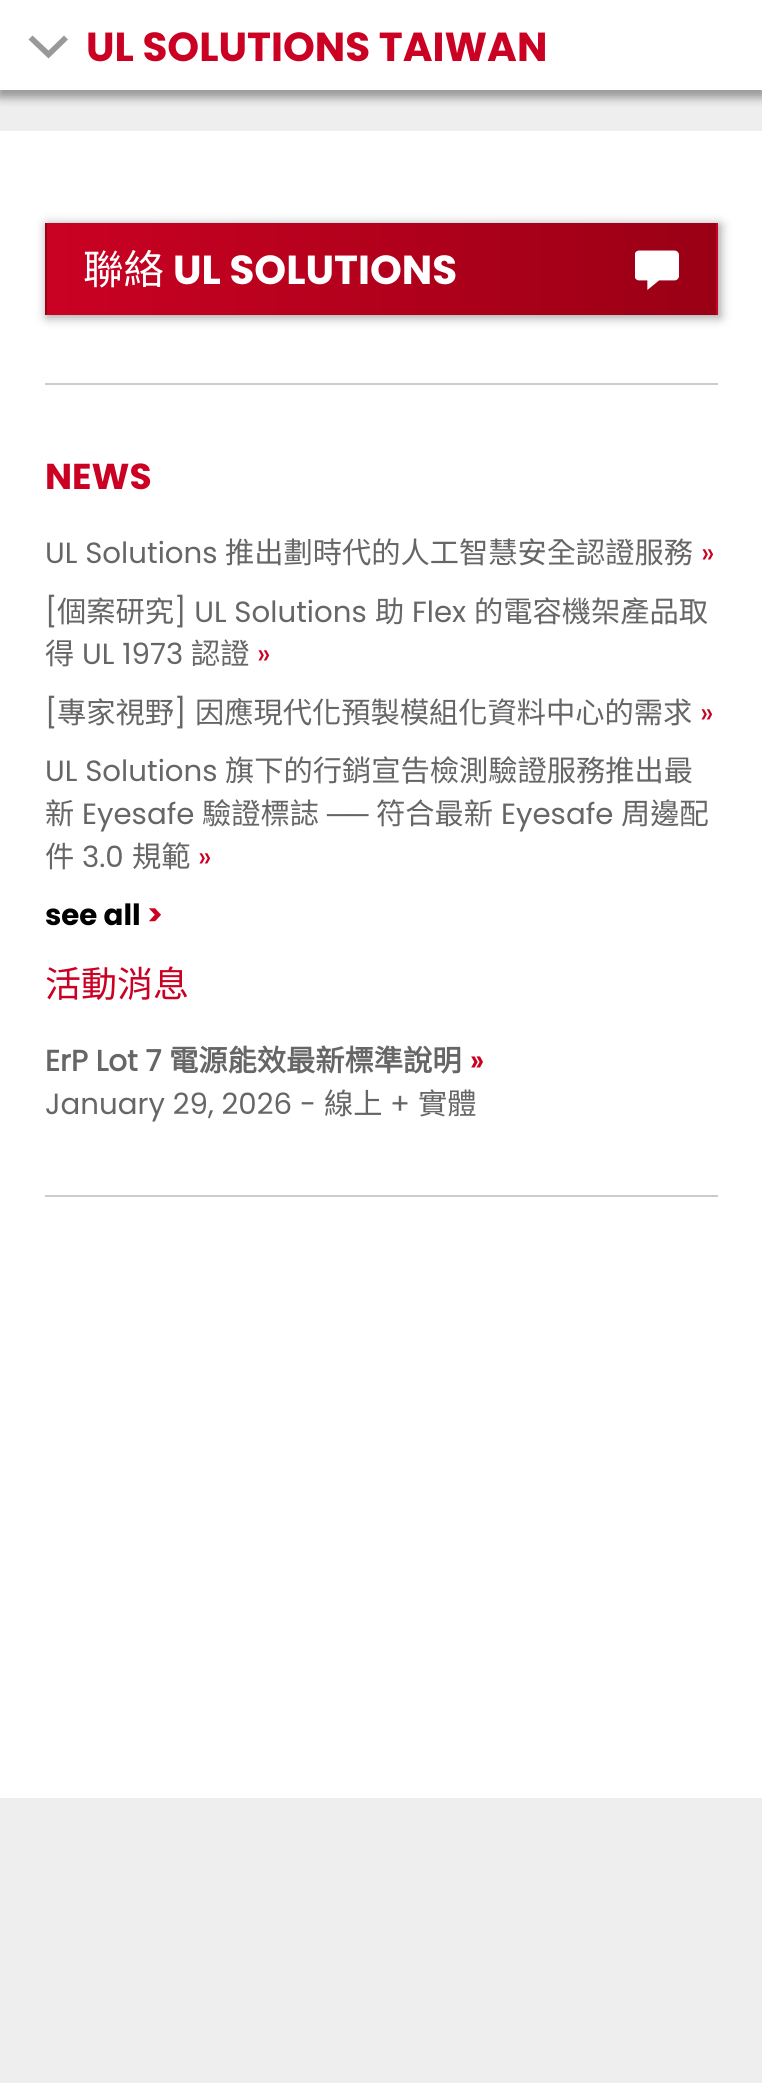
import math
import cairo



def rounded_rect(context, x, y, w, h, r):
    context.new_sub_path()
    for i, (u, v) in enumerate([(x + w - r, y + h - r), (x + r, y + h - r), (x + r, y + r), (x + w - r, y + r)]):
        context.arc(u, v, r, i * math.pi / 2, (i + 1) * math.pi / 2)
    context.close_path()


def draw_shadow(context, x, y, w, h, r, blur, alpha):
    context.push_group_with_content(cairo.Content.ALPHA)
    context.set_operator(cairo.Operator.SOURCE)
    for i in range(15, -16, -2):
        e = blur * i / 6
        if min(w, h) + 2 * e > 0:
            context.set_source_rgba(0, 0, 0, alpha * math.erfc((i - 1) / 8.5) / 2)
            rounded_rect(context, x - e, y - e, w + 2 * e, h + 2 * e, max(0, min(r + e + blur * .6, min(w, h) / 2 + e)))
            context.fill()
    context.mask(context.pop_group())


def draw_image(context, path, x, y, w, h):
    context.save()
    context.set_source_surface(cairo.ImageSurface.create_from_png(path), x, y)
    context.rectangle(x, y, w, h)
    context.fill()
    context.restore()


def draw(context):
    context.set_source_rgb(238 / 255, 238 / 255, 238 / 255)
    context.paint()
    context.set_source_rgb(153 / 255, 153 / 255, 153 / 255)
    draw_shadow(context, 0, 5, 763, 90, 0, 5.5, 1)
    context.set_source_rgb(1, 1, 1)
    context.rectangle(0, 0, 762, 90)
    context.fill()
    context.save()
    context.rectangle(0, 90, 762, 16)
    context.clip()
    context.set_source_rgb(153 / 255, 153 / 255, 153 / 255)
    draw_shadow(context, 0, 5, 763, 90, 0, 5.5, 1)
    context.restore()
    context.set_source_rgb(153 / 255, 153 / 255, 153 / 255)
    context.new_path()
    context.move_to(28.5, 39.5)
    context.line_to(32.5, 35.5)
    context.line_to(48.5, 50.5)
    context.line_to(64, 35.5)
    context.line_to(68, 39.5)
    context.line_to(48.5, 58.5)
    context.close_path()
    context.fill()
    context.set_source_rgb(1, 1, 1)
    context.rectangle(0, 131, 762, 1667)
    context.fill()
    context.set_source_rgb(153 / 255, 153 / 255, 153 / 255)
    draw_shadow(context, 47, 225, 673, 92, 0, 5.5, 1)
    gradient = cairo.LinearGradient(-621, 269, 47, 269)
    gradient.add_color_stop_rgba(0, 202 / 255, 1 / 255, 35 / 255, 1)
    gradient.add_color_stop_rgba(1, 154 / 255, 0, 21 / 255, 1)
    context.set_source(gradient)
    context.rectangle(45, 223, 2, 92)
    context.fill()
    gradient = cairo.LinearGradient(47, 269, 716, 269)
    gradient.add_color_stop_rgba(0, 202 / 255, 1 / 255, 35 / 255, 1)
    gradient.add_color_stop_rgba(1, 154 / 255, 0, 21 / 255, 1)
    context.set_source(gradient)
    context.rectangle(47, 223, 669, 92)
    context.fill()
    gradient = cairo.LinearGradient(716, 269, 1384, 269)
    gradient.add_color_stop_rgba(0, 202 / 255, 1 / 255, 35 / 255, 1)
    gradient.add_color_stop_rgba(1, 154 / 255, 0, 21 / 255, 1)
    context.set_source(gradient)
    context.rectangle(716, 223, 2, 92)
    context.fill()
    draw_image(context, "images/1.png", 635, 250, 44, 40)
    context.set_source_rgb(204 / 255, 204 / 255, 204 / 255)
    context.rectangle(45, 383, 673, 2)
    context.fill()
    context.rectangle(45, 1195, 673, 2)
    context.fill()
    context.select_font_face("Poppins", cairo.FontSlant.NORMAL, cairo.FontWeight.BOLD)
    context.set_font_size(40.5)
    context.set_source_rgb(202 / 255, 1 / 255, 35 / 255)
    context.move_to(86, 61)
    context.show_text("UL SOLUTIONS TAIWAN")
    context.select_font_face("Noto Sans CJK TC")
    context.set_source_rgb(1, 1, 1)
    context.move_to(83, 284)
    context.show_text("聯絡")
    context.select_font_face("Poppins", cairo.FontSlant.NORMAL, cairo.FontWeight.BOLD)
    context.move_to(173, 284)
    context.show_text("UL SOLUTIONS")
    context.set_font_size(36)
    context.set_source_rgb(202 / 255, 1 / 255, 35 / 255)
    context.move_to(45, 489)
    context.show_text("NEWS")
    context.select_font_face("Poppins")
    context.set_font_size(29.25)
    context.set_source_rgb(102 / 255, 102 / 255, 102 / 255)
    context.move_to(45, 563)
    context.show_text("UL Solutions")
    context.select_font_face("Noto Sans CJK TC")
    context.move_to(225, 563)
    context.show_text("推出劃時代的人工智慧安全認證服務")
    context.select_font_face("Poppins")
    context.set_source_rgb(202 / 255, 1 / 255, 35 / 255)
    context.move_to(701, 563)
    context.show_text("»")
    context.set_source_rgb(102 / 255, 102 / 255, 102 / 255)
    context.move_to(45, 622)
    context.show_text("[")
    context.select_font_face("Noto Sans CJK TC")
    context.move_to(57, 622)
    context.show_text("個案研究")
    context.select_font_face("Poppins")
    context.move_to(174, 622)
    context.show_text("] UL Solutions")
    context.select_font_face("Noto Sans CJK TC")
    context.move_to(375, 622)
    context.show_text("助")
    context.select_font_face("Poppins")
    context.move_to(412, 622)
    context.show_text("Flex")
    context.select_font_face("Noto Sans CJK TC")
    context.move_to(474, 622)
    context.show_text("的電容機架產品取")
    context.move_to(45, 664)
    context.show_text("得")
    context.select_font_face("Poppins")
    context.move_to(82, 664)
    context.show_text("UL 1973")
    context.select_font_face("Noto Sans CJK TC")
    context.move_to(191, 664)
    context.show_text("認證")
    context.select_font_face("Poppins")
    context.set_source_rgb(202 / 255, 1 / 255, 35 / 255)
    context.move_to(257, 664)
    context.show_text("»")
    context.set_source_rgb(102 / 255, 102 / 255, 102 / 255)
    context.move_to(45, 723)
    context.show_text("[")
    context.select_font_face("Noto Sans CJK TC")
    context.move_to(57, 723)
    context.show_text("專家視野")
    context.select_font_face("Poppins")
    context.move_to(174, 723)
    context.show_text("]")
    context.select_font_face("Noto Sans CJK TC")
    context.move_to(195, 723)
    context.show_text("因應現代化預製模組化資料中心的需求")
    context.select_font_face("Poppins")
    context.set_source_rgb(202 / 255, 1 / 255, 35 / 255)
    context.move_to(700, 723)
    context.show_text("»")
    context.set_source_rgb(102 / 255, 102 / 255, 102 / 255)
    context.move_to(45, 781)
    context.show_text("UL Solutions")
    context.select_font_face("Noto Sans CJK TC")
    context.move_to(225, 781)
    context.show_text("旗下的行銷宣告檢測驗證服務推出最")
    context.move_to(45, 824)
    context.show_text("新")
    context.select_font_face("Poppins")
    context.move_to(82, 824)
    context.show_text("Eyesafe")
    context.select_font_face("Noto Sans CJK TC")
    context.move_to(202, 824)
    context.show_text("驗證標誌")
    context.select_font_face("Liberation Sans")
    context.move_to(327, 824)
    context.show_text("──")
    context.select_font_face("Noto Sans CJK TC")
    context.move_to(376, 824)
    context.show_text("符合最新")
    context.select_font_face("Poppins")
    context.move_to(501, 824)
    context.show_text("Eyesafe")
    context.select_font_face("Noto Sans CJK TC")
    context.move_to(621, 824)
    context.show_text("周邊配")
    context.move_to(45, 867)
    context.show_text("件")
    context.select_font_face("Poppins")
    context.move_to(82, 867)
    context.show_text("3.0")
    context.select_font_face("Noto Sans CJK TC")
    context.move_to(132, 867)
    context.show_text("規範")
    context.select_font_face("Poppins")
    context.set_source_rgb(202 / 255, 1 / 255, 35 / 255)
    context.move_to(198, 867)
    context.show_text("»")
    context.select_font_face("Poppins", cairo.FontSlant.NORMAL, cairo.FontWeight.BOLD)
    context.set_source_rgb(0, 0, 0)
    context.move_to(45, 925)
    context.show_text("see all")
    context.set_source_rgb(202 / 255, 1 / 255, 35 / 255)
    context.move_to(147, 925)
    context.show_text(">")
    context.select_font_face("Noto Sans CJK TC")
    context.set_font_size(36)
    context.move_to(45, 997)
    context.show_text("活動消息")
    context.select_font_face("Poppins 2", cairo.FontSlant.NORMAL, cairo.FontWeight.BOLD)
    context.set_font_size(29.25)
    context.set_source_rgb(102 / 255, 102 / 255, 102 / 255)
    context.move_to(45, 1071)
    context.show_text("ErP Lot 7")
    context.select_font_face("Noto Sans CJK TC", cairo.FontSlant.NORMAL, cairo.FontWeight.BOLD)
    context.move_to(169, 1071)
    context.show_text("電源能效最新標準說明")
    context.select_font_face("Poppins 2", cairo.FontSlant.NORMAL, cairo.FontWeight.BOLD)
    context.set_source_rgb(202 / 255, 1 / 255, 35 / 255)
    context.move_to(470, 1071)
    context.show_text("»")
    context.select_font_face("Poppins")
    context.set_source_rgb(102 / 255, 102 / 255, 102 / 255)
    context.move_to(45, 1114)
    context.show_text("January 29, 2026 -")
    context.select_font_face("Noto Sans CJK TC")
    context.move_to(324, 1114)
    context.show_text("線上")
    context.select_font_face("Poppins")
    context.move_to(390, 1114)
    context.show_text("+")
    context.select_font_face("Noto Sans CJK TC")
    context.move_to(418, 1114)
    context.show_text("實體")


surface = cairo.ImageSurface(cairo.Format.RGB24, 762, 2083)
context = cairo.Context(surface)
options = cairo.FontOptions()
options.set_hint_metrics(cairo.HintMetrics.OFF)
options.set_hint_style(cairo.HintStyle.NONE)
context.set_font_options(options)
context.set_miter_limit(4)
draw(context)
surface.write_to_png("out.png")
